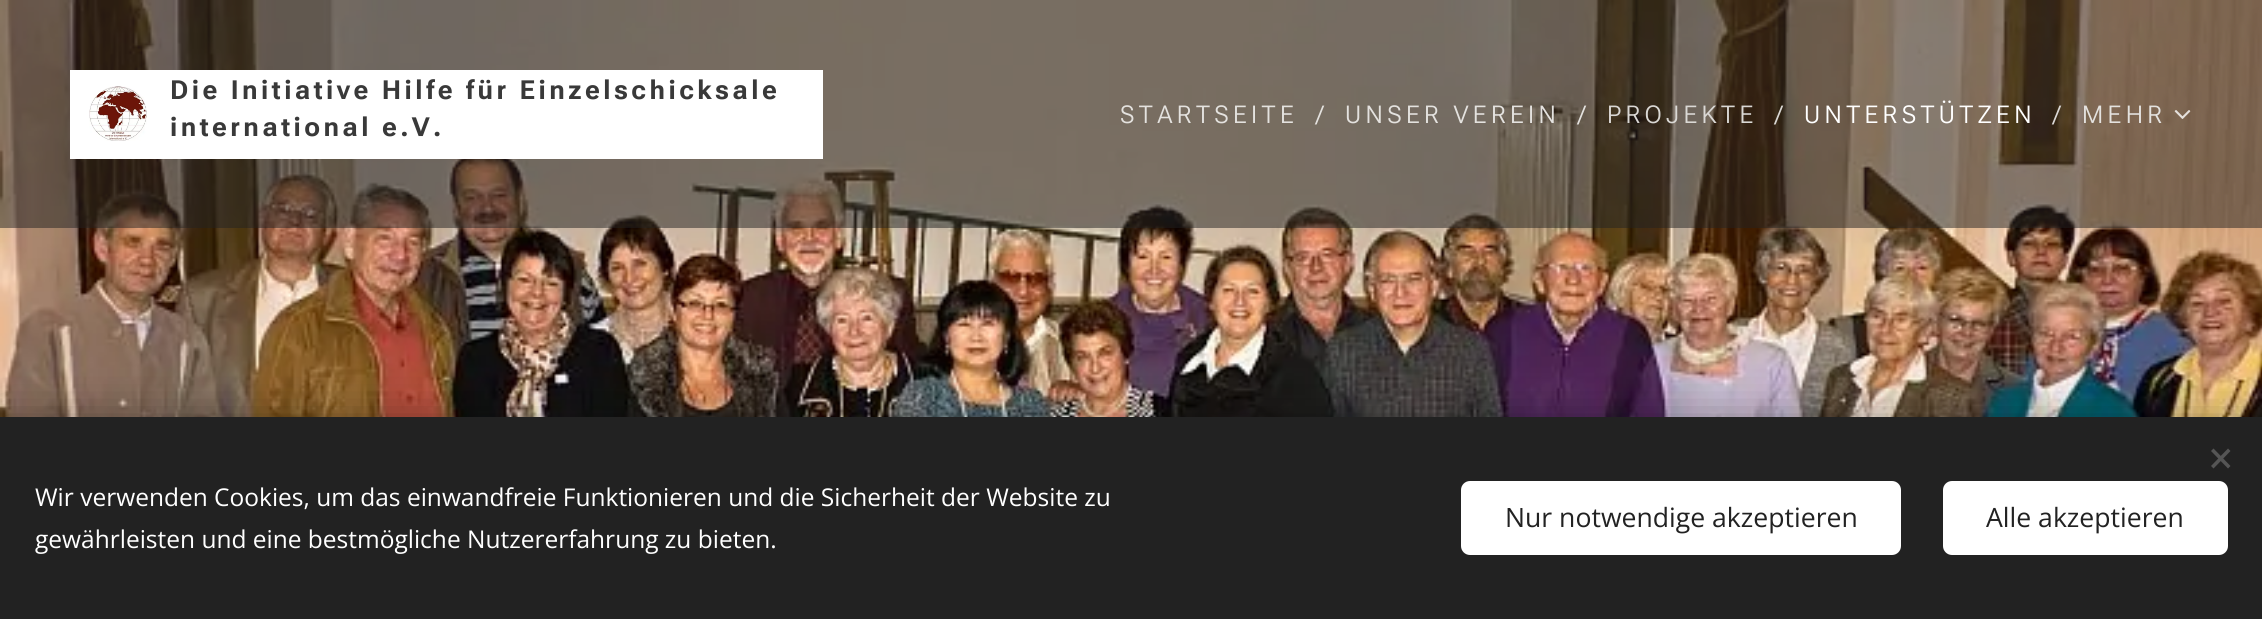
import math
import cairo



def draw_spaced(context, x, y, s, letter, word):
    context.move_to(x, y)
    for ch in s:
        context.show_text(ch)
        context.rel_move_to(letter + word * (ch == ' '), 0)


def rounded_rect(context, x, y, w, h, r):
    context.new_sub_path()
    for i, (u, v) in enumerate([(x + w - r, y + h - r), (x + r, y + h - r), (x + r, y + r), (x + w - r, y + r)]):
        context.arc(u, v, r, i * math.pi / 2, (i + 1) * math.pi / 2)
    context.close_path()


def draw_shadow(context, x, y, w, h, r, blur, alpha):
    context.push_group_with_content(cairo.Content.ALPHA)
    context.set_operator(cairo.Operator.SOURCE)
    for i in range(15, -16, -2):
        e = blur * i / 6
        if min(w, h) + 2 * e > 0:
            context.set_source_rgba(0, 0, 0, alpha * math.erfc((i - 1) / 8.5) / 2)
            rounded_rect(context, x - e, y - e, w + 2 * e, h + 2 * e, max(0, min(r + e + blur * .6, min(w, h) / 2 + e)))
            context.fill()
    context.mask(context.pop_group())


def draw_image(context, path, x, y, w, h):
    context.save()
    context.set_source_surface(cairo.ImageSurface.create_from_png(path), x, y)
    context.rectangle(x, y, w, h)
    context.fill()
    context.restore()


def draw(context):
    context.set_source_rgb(1, 1, 1)
    context.paint()
    draw_image(context, "images/1.png", 0, 0, 2262, 417)
    context.set_source_rgba(34 / 255, 34 / 255, 34 / 255, 0.5)
    context.rectangle(0, 0, 2262, 228)
    context.fill()
    context.set_source_rgb(1, 1, 1)
    context.rectangle(70, 70, 753, 89)
    context.fill()
    draw_image(context, "images/2.png", 89, 86, 58, 55)
    draw_image(context, "images/3.png", 2174, 110, 17, 9)
    context.set_source_rgb(0, 0, 0)
    draw_shadow(context, 0, 417, 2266, 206, 0, 22, 0.33)
    context.set_source_rgb(34 / 255, 34 / 255, 34 / 255)
    context.rectangle(0, 417, 2262, 202)
    context.fill()
    context.set_source_rgb(85 / 255, 85 / 255, 85 / 255)
    context.new_path()
    context.move_to(2211, 466)
    context.line_to(2228, 448.5)
    context.line_to(2230.5, 451)
    context.line_to(2213.5, 468.5)
    context.close_path()
    context.fill()
    context.new_path()
    context.move_to(2213.5, 448.5)
    context.line_to(2230.5, 466)
    context.line_to(2228, 468.5)
    context.line_to(2211, 451)
    context.close_path()
    context.fill()
    context.set_source_rgb(1, 1, 1)
    rounded_rect(context, 1461, 481, 440, 74, 9)
    context.fill()
    rounded_rect(context, 1943, 481, 285, 74, 9)
    context.fill()
    context.select_font_face("Roboto Flex", cairo.FontSlant.NORMAL, cairo.FontWeight.BOLD)
    context.set_font_size(26.25)
    context.set_source_rgb(57 / 255, 57 / 255, 57 / 255)
    draw_spaced(context, 170, 99, "Die Initiative Hilfe für Einzelschicksale", 3.5, 0)
    draw_spaced(context, 170, 136, "international e.V.", 3.5, 0)
    context.select_font_face("Roboto Flex Light")
    context.set_font_size(24.5)
    context.set_source_rgb(228 / 255, 226 / 255, 223 / 255)
    draw_spaced(context, 1120, 123, "STARTSEITE", 4.4, 0)
    draw_spaced(context, 1316, 123, "/", 4.4, 0)
    draw_spaced(context, 1345, 123, "UNSER VEREIN", 4.4, 0)
    draw_spaced(context, 1578, 123, "/", 4.4, 0)
    context.set_source_rgb(218 / 255, 216 / 255, 213 / 255)
    draw_spaced(context, 1607, 123, "PROJEKTE", 4.4, 0)
    draw_spaced(context, 1775, 123, "/", 4.4, 0)
    context.set_source_rgb(1, 1, 1)
    draw_spaced(context, 1804, 123, "UNTERSTÜTZEN", 4.4, 0)
    context.set_source_rgb(218 / 255, 216 / 255, 213 / 255)
    draw_spaced(context, 2053, 123, "/", 4.4, 0)
    context.set_source_rgb(228 / 255, 226 / 255, 223 / 255)
    draw_spaced(context, 2082, 123, "MEHR", 4.4, 0)
    context.select_font_face("Open Sans")
    context.set_source_rgb(1, 1, 1)
    context.move_to(35, 506)
    context.show_text("Wir verwenden Cookies, um das einwandfreie Funktionieren und die Sicherheit der Website zu")
    context.move_to(35, 548)
    context.show_text("gewährleisten und eine bestmögliche Nutzererfahrung zu bieten.")
    context.set_font_size(26.6)
    context.set_source_rgb(34 / 255, 34 / 255, 34 / 255)
    context.move_to(1505, 527)
    context.show_text("Nur notwendige akzeptieren")
    context.move_to(1986, 527)
    context.show_text("Alle akzeptieren")


surface = cairo.ImageSurface(cairo.Format.RGB24, 2262, 619)
context = cairo.Context(surface)
options = cairo.FontOptions()
options.set_hint_metrics(cairo.HintMetrics.OFF)
options.set_hint_style(cairo.HintStyle.NONE)
context.set_font_options(options)
context.set_miter_limit(4)
draw(context)
surface.write_to_png("out.png")
